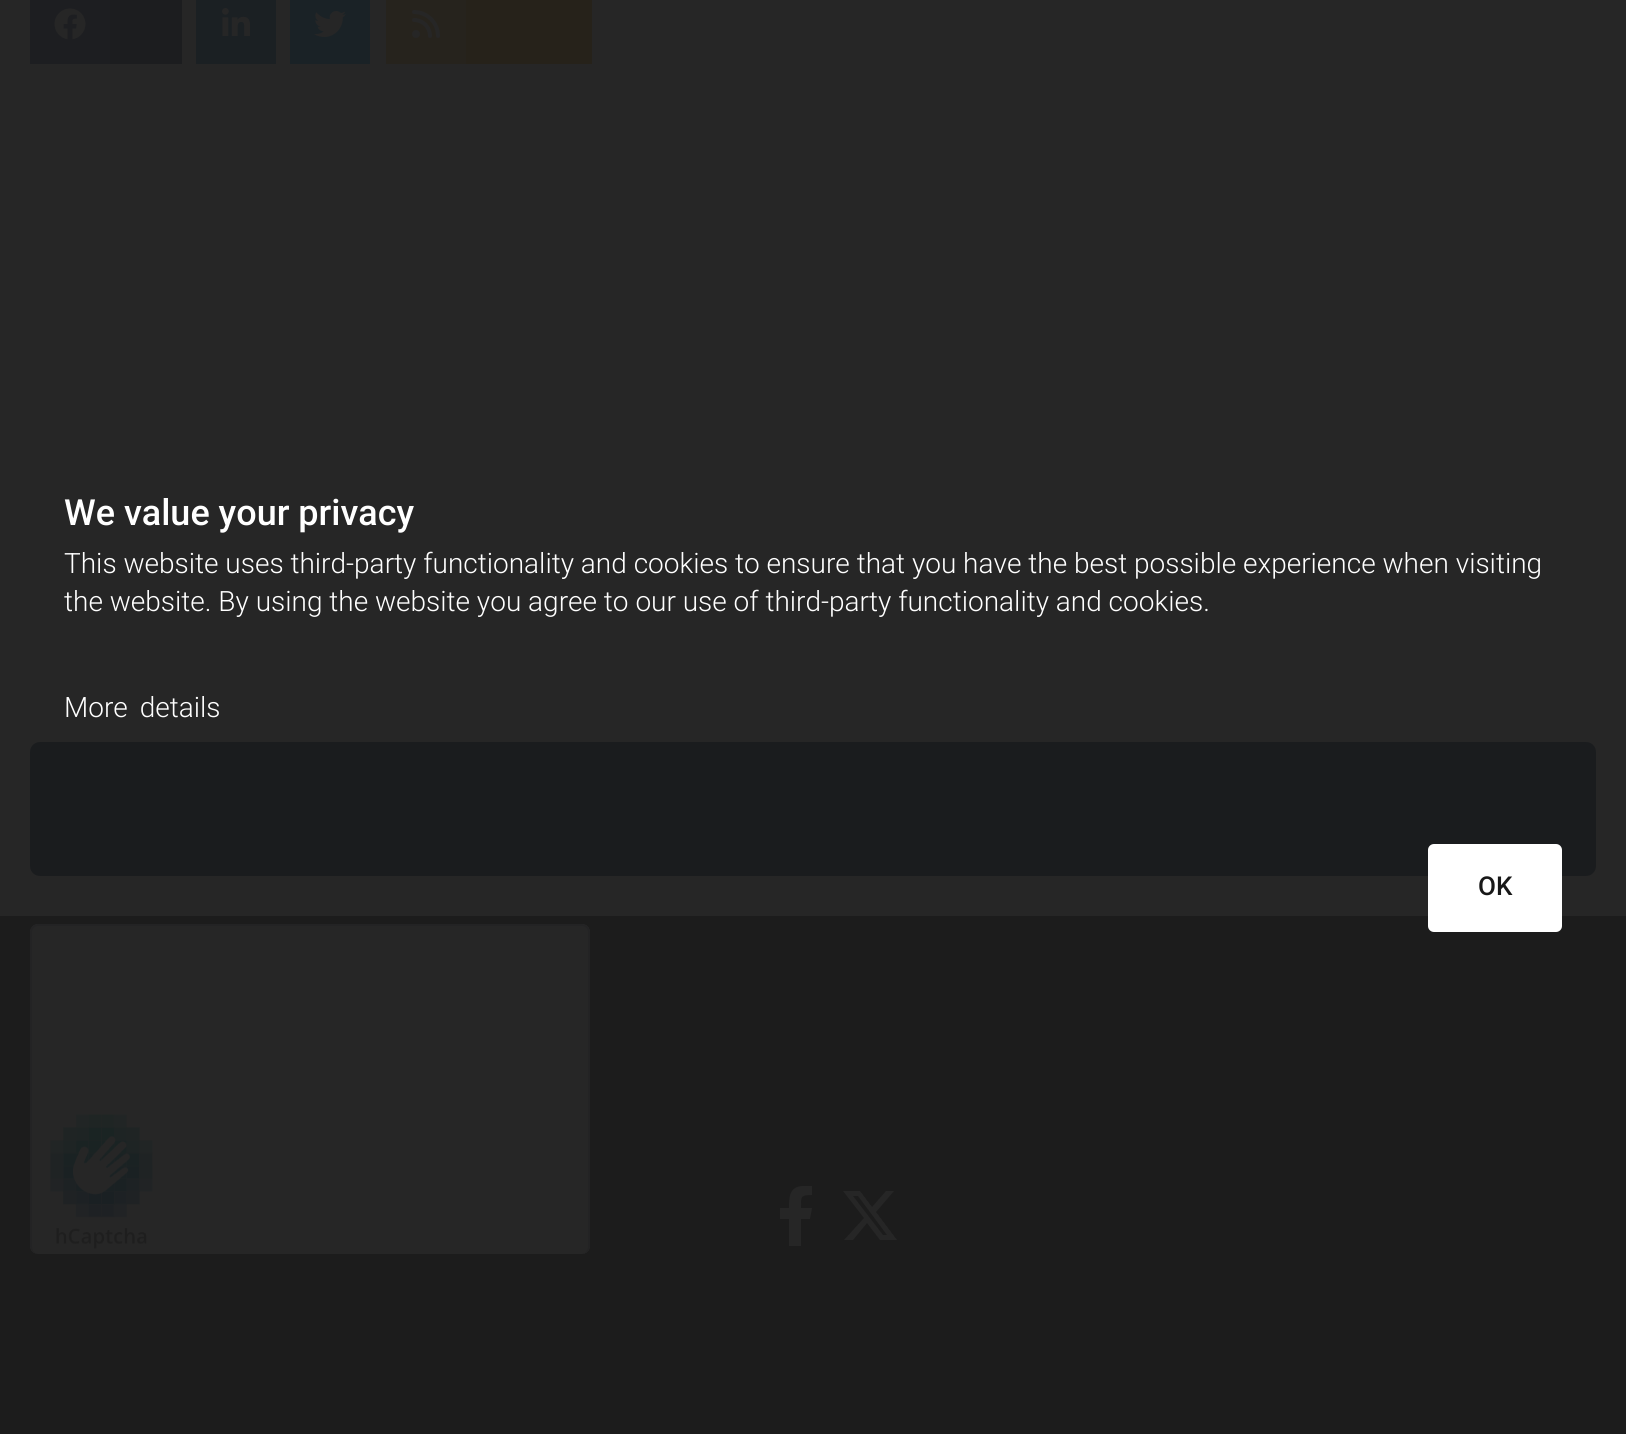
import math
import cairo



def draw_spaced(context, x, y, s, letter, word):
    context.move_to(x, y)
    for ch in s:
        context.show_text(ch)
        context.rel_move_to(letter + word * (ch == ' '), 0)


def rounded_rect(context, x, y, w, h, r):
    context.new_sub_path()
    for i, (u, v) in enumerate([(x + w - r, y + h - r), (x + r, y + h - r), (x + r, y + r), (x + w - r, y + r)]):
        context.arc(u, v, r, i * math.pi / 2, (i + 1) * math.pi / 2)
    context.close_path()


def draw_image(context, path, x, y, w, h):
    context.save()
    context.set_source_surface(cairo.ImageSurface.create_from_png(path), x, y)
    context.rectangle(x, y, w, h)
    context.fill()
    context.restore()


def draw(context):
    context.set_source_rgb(38 / 255, 38 / 255, 38 / 255)
    context.paint()
    context.set_source_rgb(28 / 255, 29 / 255, 31 / 255)
    context.rectangle(110, 0, 72, 64)
    context.fill()
    context.set_source_rgb(29 / 255, 30 / 255, 33 / 255)
    context.rectangle(30, 0, 80, 64)
    context.fill()
    draw_image(context, "images/1.png", 54, 8, 32, 32)
    context.set_source_rgb(27 / 255, 32 / 255, 35 / 255)
    context.rectangle(196, 0, 80, 64)
    context.fill()
    draw_image(context, "images/2.png", 222, 8, 28, 28)
    context.set_source_rgb(26 / 255, 34 / 255, 38 / 255)
    context.rectangle(290, 0, 80, 64)
    context.fill()
    draw_image(context, "images/3.png", 314, 11, 32, 26)
    context.set_source_rgb(38 / 255, 34 / 255, 26 / 255)
    context.rectangle(466, 0, 126, 64)
    context.fill()
    context.set_source_rgb(38 / 255, 35 / 255, 29 / 255)
    context.rectangle(386, 0, 80, 64)
    context.fill()
    draw_image(context, "images/4.png", 412, 10, 28, 28)
    context.set_source_rgb(26 / 255, 28 / 255, 30 / 255)
    rounded_rect(context, 30, 742, 1566, 134, 10)
    context.fill()
    context.set_source_rgb(28 / 255, 28 / 255, 28 / 255)
    context.rectangle(0, 916, 1626, 518)
    context.fill()
    context.set_source_rgb(38 / 255, 38 / 255, 38 / 255)
    rounded_rect(context, 30, 924, 560, 330, 8)
    context.fill()
    context.set_source_rgb(35 / 255, 35 / 255, 36 / 255)
    context.set_fill_rule(cairo.FillRule.EVEN_ODD)
    context.new_path()
    context.move_to(38, 924)
    context.line_to(582, 924)
    context.curve_to(586, 924, 590, 928, 590, 932)
    context.line_to(590, 1246)
    context.curve_to(590, 1250, 586, 1254, 582, 1254)
    context.line_to(38, 1254)
    context.curve_to(34, 1254, 30, 1250, 30, 1246)
    context.line_to(30, 932)
    context.curve_to(30, 928, 34, 924, 38, 924)
    context.close_path()
    context.move_to(38, 926)
    context.line_to(582, 926)
    context.curve_to(585, 926, 588, 929, 588, 932)
    context.line_to(588, 1246)
    context.curve_to(588, 1250, 585, 1254, 582, 1254)
    context.line_to(38, 1254)
    context.curve_to(35, 1254, 32, 1250, 32, 1246)
    context.line_to(32, 932)
    context.curve_to(32, 929, 35, 926, 38, 926)
    context.close_path()
    context.fill()
    draw_image(context, "images/5.png", 32, 1114, 121, 135)
    context.set_source_rgb(38 / 255, 38 / 255, 38 / 255)
    context.set_fill_rule(cairo.FillRule.WINDING)
    context.new_path()
    context.move_to(810, 1219)
    context.line_to(812, 1208)
    context.line_to(801, 1208)
    context.curve_to(801, 1197, 800, 1195, 812, 1195)
    context.line_to(812, 1186)
    context.line_to(802, 1186)
    context.curve_to(789, 1187, 789, 1198, 789, 1208)
    context.line_to(780, 1208)
    context.line_to(780, 1219)
    context.line_to(789, 1219)
    context.line_to(789, 1246)
    context.line_to(801, 1246)
    context.line_to(801, 1219)
    context.close_path()
    context.fill()
    context.new_path()
    context.move_to(886, 1191)
    context.line_to(894, 1191)
    context.line_to(876, 1212)
    context.line_to(897, 1240)
    context.line_to(880, 1240)
    context.line_to(867, 1223)
    context.line_to(853, 1240)
    context.line_to(844, 1240)
    context.line_to(864, 1218)
    context.line_to(843, 1191)
    context.line_to(860, 1191)
    context.line_to(872, 1207)
    context.close_path()
    context.move_to(883, 1235)
    context.line_to(887, 1235)
    context.line_to(858, 1196)
    context.line_to(853, 1196)
    context.close_path()
    context.fill()
    context.set_source_rgb(1, 1, 1)
    rounded_rect(context, 1429, 845, 132, 86, 5)
    context.fill_preserve()
    context.stroke()
    context.select_font_face("Roboto Medium")
    context.set_font_size(36)
    context.move_to(64, 525)
    context.show_text("We value your privacy")
    context.select_font_face("Roboto Light")
    context.set_font_size(28)
    context.move_to(64, 573)
    context.show_text("This website uses third-party functionality and cookies to ensure that you have the best possible experience when visiting")
    context.move_to(64, 611)
    context.show_text("the website. By using the website you agree to our use of third-party functionality and cookies.")
    draw_spaced(context, 64, 717, "More details", 0, 5)
    context.select_font_face("Roboto Medium")
    context.set_font_size(26)
    context.set_source_rgb(24 / 255, 24 / 255, 24 / 255)
    context.move_to(1478, 895)
    context.show_text("OK")


surface = cairo.ImageSurface(cairo.Format.RGB24, 1626, 1434)
context = cairo.Context(surface)
options = cairo.FontOptions()
options.set_hint_metrics(cairo.HintMetrics.OFF)
options.set_hint_style(cairo.HintStyle.NONE)
context.set_font_options(options)
context.set_miter_limit(4)
draw(context)
surface.write_to_png("out.png")
